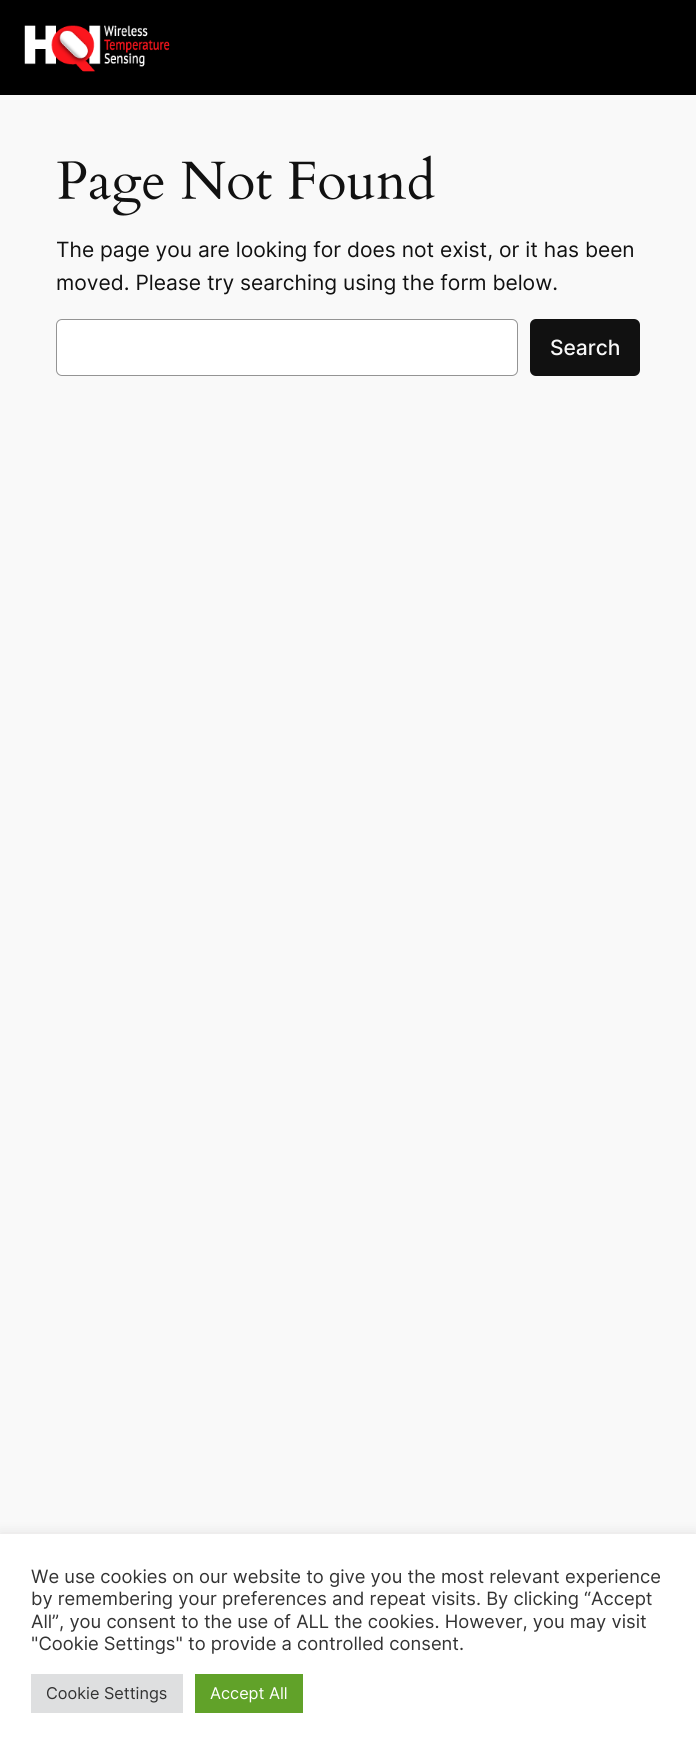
import math
import cairo



def rounded_rect(context, x, y, w, h, r):
    context.new_sub_path()
    for i, (u, v) in enumerate([(x + w - r, y + h - r), (x + r, y + h - r), (x + r, y + r), (x + w - r, y + r)]):
        context.arc(u, v, r, i * math.pi / 2, (i + 1) * math.pi / 2)
    context.close_path()


def draw_shadow(context, x, y, w, h, r, blur, alpha):
    context.push_group_with_content(cairo.Content.ALPHA)
    context.set_operator(cairo.Operator.SOURCE)
    for i in range(15, -16, -2):
        e = blur * i / 6
        if min(w, h) + 2 * e > 0:
            context.set_source_rgba(0, 0, 0, alpha * math.erfc((i - 1) / 8.5) / 2)
            rounded_rect(context, x - e, y - e, w + 2 * e, h + 2 * e, max(0, min(r + e + blur * .6, min(w, h) / 2 + e)))
            context.fill()
    context.mask(context.pop_group())


def draw_image(context, path, x, y, w, h):
    context.save()
    context.set_source_surface(cairo.ImageSurface.create_from_png(path), x, y)
    context.rectangle(x, y, w, h)
    context.fill()
    context.restore()


def draw(context):
    context.set_source_rgb(249 / 255, 249 / 255, 249 / 255)
    context.paint()
    context.set_source_rgb(0, 0, 0)
    context.rectangle(0, 0, 696, 95)
    context.fill()
    draw_image(context, "images/1.png", 24, 25, 146, 47)
    draw_image(context, "images/2.png", 57, 155, 378, 61)
    context.set_source_rgb(1, 1, 1)
    rounded_rect(context, 56.5, 319.5, 461, 56, 5.5)
    context.fill_preserve()
    context.set_source_rgb(148 / 255, 148 / 255, 148 / 255)
    context.set_line_width(1)
    context.stroke()
    context.set_source_rgb(17 / 255, 17 / 255, 17 / 255)
    rounded_rect(context, 530, 319, 110, 57, 6)
    context.fill()
    context.set_source_rgb(172 / 255, 171 / 255, 171 / 255)
    draw_shadow(context, 0, 1533, 696, 216, 0, 6, 0.3)
    context.set_source_rgb(1, 1, 1)
    context.rectangle(0, 1534, 696, 216)
    context.fill()
    context.set_source_rgb(222 / 255, 223 / 255, 224 / 255)
    context.rectangle(31, 1674, 152, 39)
    context.fill()
    context.set_source_rgb(97 / 255, 162 / 255, 41 / 255)
    context.rectangle(195, 1674, 108, 39)
    context.fill()
    context.select_font_face("Inter")
    context.set_font_size(21)
    context.set_source_rgb(17 / 255, 17 / 255, 17 / 255)
    context.move_to(56, 257)
    context.show_text("The page you are looking for does not exist, or it has been")
    context.move_to(56, 290)
    context.show_text("moved. Please try searching using the form below.")
    context.select_font_face("Inter Medium")
    context.set_source_rgb(249 / 255, 249 / 255, 249 / 255)
    context.move_to(550, 355)
    context.show_text("Search")
    context.select_font_face("Inter")
    context.set_font_size(18.35)
    context.set_source_rgb(51 / 255, 51 / 255, 51 / 255)
    context.move_to(31, 1583)
    context.show_text("We use cookies on our website to give you the most relevant experience")
    context.move_to(31, 1605)
    context.show_text("by remembering your preferences and repeat visits. By clicking “Accept")
    context.move_to(31, 1628)
    context.show_text("All”, you consent to the use of ALL the cookies. However, you may visit")
    context.move_to(31, 1650)
    context.show_text("\"Cookie Settings\" to provide a controlled consent.")
    context.set_font_size(16.25)
    context.move_to(46, 1699)
    context.show_text("Cookie Settings")
    context.set_source_rgb(1, 1, 1)
    context.move_to(210, 1699)
    context.show_text("Accept All")


surface = cairo.ImageSurface(cairo.Format.RGB24, 696, 1750)
context = cairo.Context(surface)
options = cairo.FontOptions()
options.set_hint_metrics(cairo.HintMetrics.OFF)
options.set_hint_style(cairo.HintStyle.NONE)
context.set_font_options(options)
context.set_miter_limit(4)
draw(context)
surface.write_to_png("out.png")
